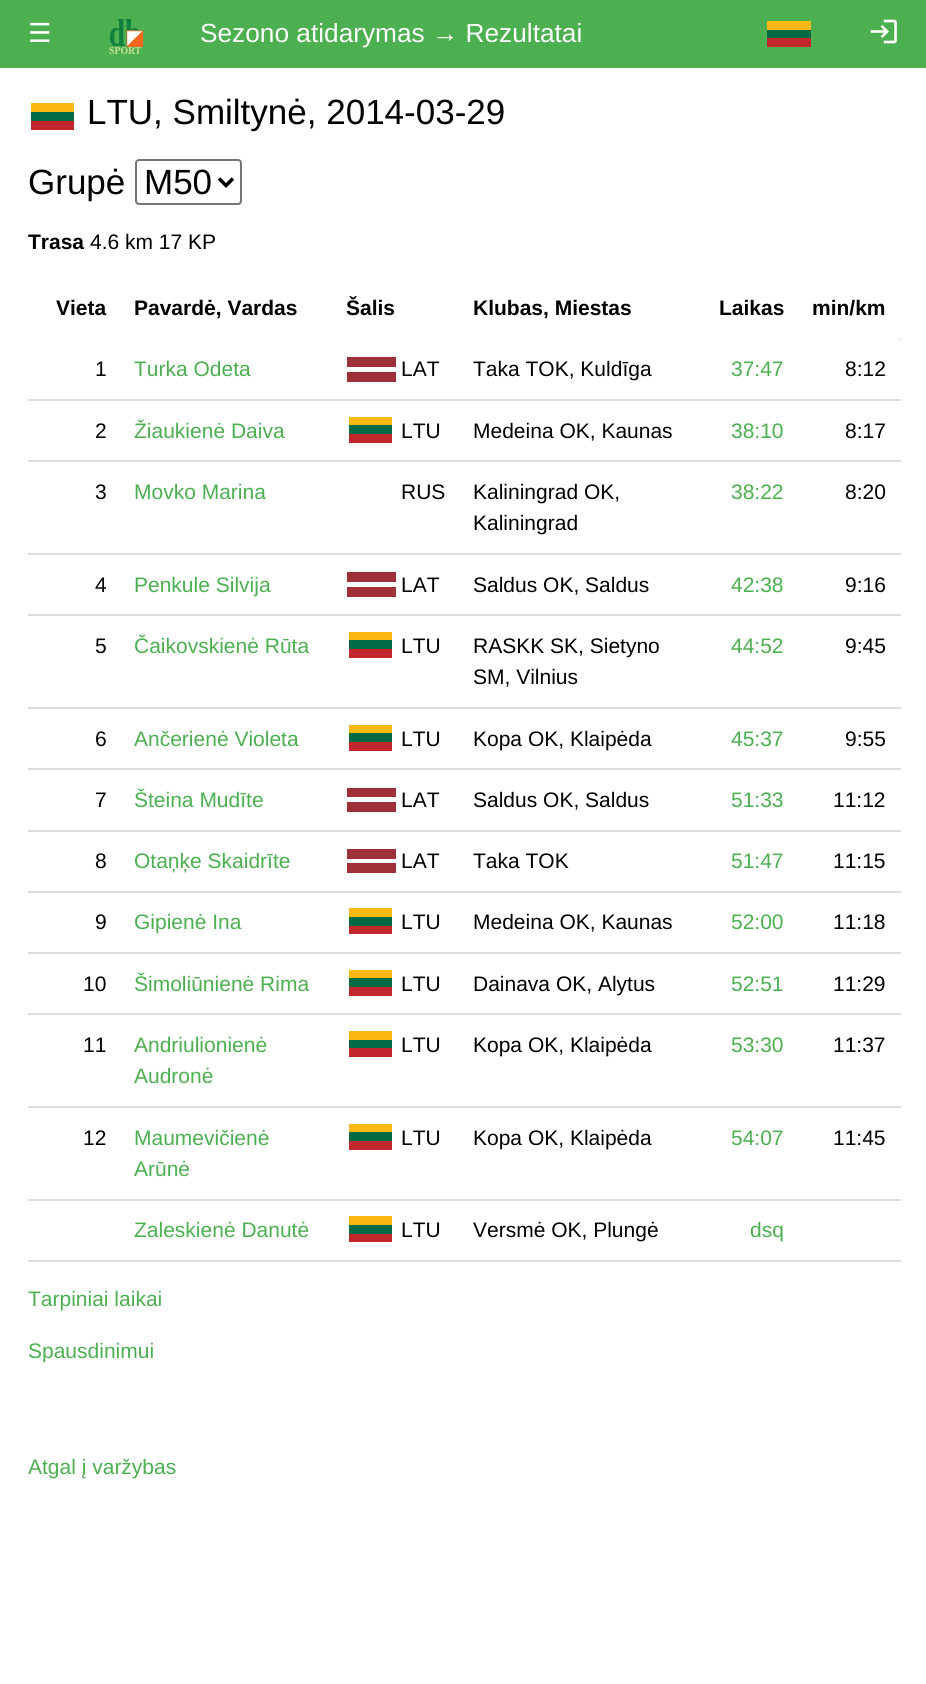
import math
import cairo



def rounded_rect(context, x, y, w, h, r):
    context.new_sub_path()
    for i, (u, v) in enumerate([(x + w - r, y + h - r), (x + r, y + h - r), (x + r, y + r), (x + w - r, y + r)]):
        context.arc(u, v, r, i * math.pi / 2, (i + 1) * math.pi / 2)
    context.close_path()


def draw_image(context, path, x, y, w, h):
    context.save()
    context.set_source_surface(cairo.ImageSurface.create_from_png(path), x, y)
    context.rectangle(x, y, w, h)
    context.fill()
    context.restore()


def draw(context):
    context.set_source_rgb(1, 1, 1)
    context.paint()
    context.set_source_rgb(76 / 255, 175 / 255, 80 / 255)
    context.rectangle(172, 0, 754, 68)
    context.fill()
    context.rectangle(0, 0, 172, 68)
    context.fill()
    draw_image(context, "images/1.png", 109, 19, 35, 35)
    context.set_source_rgb(253 / 255, 185 / 255, 19 / 255)
    context.rectangle(767, 21, 44, 9)
    context.fill()
    context.set_source_rgb(0, 106 / 255, 68 / 255)
    context.rectangle(767, 30, 44, 8)
    context.fill()
    context.set_source_rgb(193 / 255, 39 / 255, 45 / 255)
    context.rectangle(767, 38, 44, 9)
    context.fill()
    draw_image(context, "images/2.png", 870, 19, 27, 25)
    context.set_source_rgb(253 / 255, 185 / 255, 19 / 255)
    context.rectangle(31, 103, 43, 9)
    context.fill()
    context.set_source_rgb(0, 106 / 255, 68 / 255)
    context.rectangle(31, 112, 43, 9)
    context.fill()
    context.set_source_rgb(193 / 255, 39 / 255, 45 / 255)
    context.rectangle(31, 121, 43, 9)
    context.fill()
    rounded_rect(context, 136, 160, 105, 44, 3)
    context.set_source_rgb(118 / 255, 118 / 255, 118 / 255)
    context.stroke()
    context.new_path()
    context.move_to(219, 178.5)
    context.line_to(226, 185.5)
    context.line_to(233, 178.5)
    context.set_source_rgb(0, 0, 0)
    context.set_line_width(3.5)
    context.stroke()
    context.set_source_rgb(221 / 255, 221 / 255, 221 / 255)
    context.rectangle(900, 338, 1, 2)
    context.fill()
    context.rectangle(28, 399, 873, 2)
    context.fill()
    context.save()
    context.rectangle(347, 357, 49, 25)
    context.clip()
    context.set_source_rgb(158 / 255, 48 / 255, 57 / 255)
    context.new_path()
    context.move_to(346, 357)
    context.line_to(396, 357)
    context.line_to(396, 382)
    context.line_to(346, 382)
    context.fill()
    context.set_source_rgb(1, 1, 1)
    context.new_path()
    context.move_to(346, 367)
    context.line_to(396, 367)
    context.line_to(396, 372)
    context.line_to(346, 372)
    context.fill()
    context.restore()
    context.rectangle(28, 460, 873, 2)
    context.fill()
    context.set_source_rgb(253 / 255, 185 / 255, 19 / 255)
    context.rectangle(349, 417, 43, 8)
    context.fill()
    context.set_source_rgb(0, 106 / 255, 68 / 255)
    context.rectangle(349, 425, 43, 9)
    context.fill()
    context.set_source_rgb(193 / 255, 39 / 255, 45 / 255)
    context.rectangle(349, 434, 43, 9)
    context.fill()
    context.set_source_rgb(221 / 255, 221 / 255, 221 / 255)
    context.rectangle(28, 553, 873, 2)
    context.fill()
    context.rectangle(28, 614, 873, 2)
    context.fill()
    context.save()
    context.rectangle(347, 572, 49, 25)
    context.clip()
    context.set_source_rgb(158 / 255, 48 / 255, 57 / 255)
    context.new_path()
    context.move_to(346, 572)
    context.line_to(396, 572)
    context.line_to(396, 597)
    context.line_to(346, 597)
    context.fill()
    context.set_source_rgb(1, 1, 1)
    context.new_path()
    context.move_to(346, 582)
    context.line_to(396, 582)
    context.line_to(396, 587)
    context.line_to(346, 587)
    context.fill()
    context.restore()
    context.rectangle(28, 707, 873, 2)
    context.fill()
    context.set_source_rgb(253 / 255, 185 / 255, 19 / 255)
    context.rectangle(349, 632, 43, 8)
    context.fill()
    context.set_source_rgb(0, 106 / 255, 68 / 255)
    context.rectangle(349, 640, 43, 9)
    context.fill()
    context.set_source_rgb(193 / 255, 39 / 255, 45 / 255)
    context.rectangle(349, 649, 43, 9)
    context.fill()
    context.set_source_rgb(221 / 255, 221 / 255, 221 / 255)
    context.rectangle(28, 768, 873, 2)
    context.fill()
    context.set_source_rgb(253 / 255, 185 / 255, 19 / 255)
    context.rectangle(349, 725, 43, 8)
    context.fill()
    context.set_source_rgb(0, 106 / 255, 68 / 255)
    context.rectangle(349, 733, 43, 9)
    context.fill()
    context.set_source_rgb(193 / 255, 39 / 255, 45 / 255)
    context.rectangle(349, 742, 43, 9)
    context.fill()
    context.set_source_rgb(221 / 255, 221 / 255, 221 / 255)
    context.rectangle(28, 830, 873, 2)
    context.fill()
    context.save()
    context.rectangle(347, 788, 49, 24)
    context.clip()
    context.set_source_rgb(158 / 255, 48 / 255, 57 / 255)
    context.new_path()
    context.move_to(346, 788)
    context.line_to(396, 788)
    context.line_to(396, 812)
    context.line_to(346, 812)
    context.fill()
    context.set_source_rgb(1, 1, 1)
    context.new_path()
    context.move_to(346, 797)
    context.line_to(396, 797)
    context.line_to(396, 802)
    context.line_to(346, 802)
    context.fill()
    context.restore()
    context.rectangle(28, 891, 873, 2)
    context.fill()
    context.save()
    context.rectangle(347, 849, 49, 24)
    context.clip()
    context.set_source_rgb(158 / 255, 48 / 255, 57 / 255)
    context.new_path()
    context.move_to(346, 849)
    context.line_to(396, 849)
    context.line_to(396, 873)
    context.line_to(346, 873)
    context.fill()
    context.set_source_rgb(1, 1, 1)
    context.new_path()
    context.move_to(346, 859)
    context.line_to(396, 859)
    context.line_to(396, 863)
    context.line_to(346, 863)
    context.fill()
    context.restore()
    context.rectangle(28, 952, 873, 2)
    context.fill()
    context.set_source_rgb(253 / 255, 185 / 255, 19 / 255)
    context.rectangle(349, 908, 43, 9)
    context.fill()
    context.set_source_rgb(0, 106 / 255, 68 / 255)
    context.rectangle(349, 917, 43, 9)
    context.fill()
    context.set_source_rgb(193 / 255, 39 / 255, 45 / 255)
    context.rectangle(349, 926, 43, 8)
    context.fill()
    context.set_source_rgb(221 / 255, 221 / 255, 221 / 255)
    context.rectangle(28, 1013, 873, 2)
    context.fill()
    context.set_source_rgb(253 / 255, 185 / 255, 19 / 255)
    context.rectangle(349, 970, 43, 8)
    context.fill()
    context.set_source_rgb(0, 106 / 255, 68 / 255)
    context.rectangle(349, 978, 43, 9)
    context.fill()
    context.set_source_rgb(193 / 255, 39 / 255, 45 / 255)
    context.rectangle(349, 987, 43, 9)
    context.fill()
    context.set_source_rgb(221 / 255, 221 / 255, 221 / 255)
    context.rectangle(28, 1106, 873, 2)
    context.fill()
    context.set_source_rgb(253 / 255, 185 / 255, 19 / 255)
    context.rectangle(349, 1031, 43, 9)
    context.fill()
    context.set_source_rgb(0, 106 / 255, 68 / 255)
    context.rectangle(349, 1040, 43, 8)
    context.fill()
    context.set_source_rgb(193 / 255, 39 / 255, 45 / 255)
    context.rectangle(349, 1048, 43, 9)
    context.fill()
    context.set_source_rgb(221 / 255, 221 / 255, 221 / 255)
    context.rectangle(28, 1199, 873, 2)
    context.fill()
    context.set_source_rgb(253 / 255, 185 / 255, 19 / 255)
    context.rectangle(349, 1124, 43, 8)
    context.fill()
    context.set_source_rgb(0, 106 / 255, 68 / 255)
    context.rectangle(349, 1132, 43, 9)
    context.fill()
    context.set_source_rgb(193 / 255, 39 / 255, 45 / 255)
    context.rectangle(349, 1141, 43, 9)
    context.fill()
    context.set_source_rgb(221 / 255, 221 / 255, 221 / 255)
    context.rectangle(28, 1260, 873, 2)
    context.fill()
    context.set_source_rgb(253 / 255, 185 / 255, 19 / 255)
    context.rectangle(349, 1216, 43, 9)
    context.fill()
    context.set_source_rgb(0, 106 / 255, 68 / 255)
    context.rectangle(349, 1225, 43, 9)
    context.fill()
    context.set_source_rgb(193 / 255, 39 / 255, 45 / 255)
    context.rectangle(349, 1234, 43, 8)
    context.fill()
    context.select_font_face("DejaVu Sans")
    context.set_font_size(26.25)
    context.set_source_rgb(1, 1, 1)
    context.move_to(28, 42)
    context.show_text("☰")
    context.select_font_face("Liberation Sans")
    context.move_to(200, 42)
    context.show_text("Sezono atidarymas → Rezultatai")
    context.set_font_size(35)
    context.set_source_rgb(0, 0, 0)
    context.move_to(87, 124)
    context.show_text("LTU, Smiltynė, 2014-03-29")
    context.move_to(28, 194)
    context.show_text("Grupė")
    context.move_to(144, 194)
    context.show_text("M50")
    context.select_font_face("Liberation Sans", cairo.FontSlant.NORMAL, cairo.FontWeight.BOLD)
    context.set_font_size(21)
    context.move_to(28, 249)
    context.show_text("Trasa")
    context.select_font_face("Liberation Sans")
    context.move_to(90, 249)
    context.show_text("4.6 km 17 KP")
    context.select_font_face("Liberation Sans", cairo.FontSlant.NORMAL, cairo.FontWeight.BOLD)
    context.move_to(56, 315)
    context.show_text("Vieta")
    context.move_to(134, 315)
    context.show_text("Pavardė, Vardas")
    context.move_to(346, 315)
    context.show_text("Šalis")
    context.move_to(473, 315)
    context.show_text("Klubas, Miestas")
    context.move_to(719, 315)
    context.show_text("Laikas")
    context.move_to(812, 315)
    context.show_text("min/km")
    context.select_font_face("Liberation Sans")
    context.move_to(95, 376)
    context.show_text("1")
    context.set_source_rgb(76 / 255, 175 / 255, 80 / 255)
    context.move_to(134, 376)
    context.show_text("Turka Odeta")
    context.set_source_rgb(0, 0, 0)
    context.move_to(401, 376)
    context.show_text("LAT")
    context.move_to(473, 376)
    context.show_text("Taka TOK, Kuldīga")
    context.set_source_rgb(76 / 255, 175 / 255, 80 / 255)
    context.move_to(731, 376)
    context.show_text("37:47")
    context.set_source_rgb(0, 0, 0)
    context.move_to(845, 376)
    context.show_text("8:12")
    context.move_to(95, 438)
    context.show_text("2")
    context.set_source_rgb(76 / 255, 175 / 255, 80 / 255)
    context.move_to(134, 438)
    context.show_text("Žiaukienė Daiva")
    context.set_source_rgb(0, 0, 0)
    context.move_to(401, 438)
    context.show_text("LTU")
    context.move_to(473, 438)
    context.show_text("Medeina OK, Kaunas")
    context.set_source_rgb(76 / 255, 175 / 255, 80 / 255)
    context.move_to(731, 438)
    context.show_text("38:10")
    context.set_source_rgb(0, 0, 0)
    context.move_to(845, 438)
    context.show_text("8:17")
    context.move_to(95, 499)
    context.show_text("3")
    context.set_source_rgb(76 / 255, 175 / 255, 80 / 255)
    context.move_to(134, 499)
    context.show_text("Movko Marina")
    context.set_source_rgb(0, 0, 0)
    context.move_to(401, 499)
    context.show_text("RUS")
    context.move_to(473, 499)
    context.show_text("Kaliningrad OK,")
    context.move_to(473, 530)
    context.show_text("Kaliningrad")
    context.set_source_rgb(76 / 255, 175 / 255, 80 / 255)
    context.move_to(731, 499)
    context.show_text("38:22")
    context.set_source_rgb(0, 0, 0)
    context.move_to(845, 499)
    context.show_text("8:20")
    context.move_to(95, 592)
    context.show_text("4")
    context.set_source_rgb(76 / 255, 175 / 255, 80 / 255)
    context.move_to(134, 592)
    context.show_text("Penkule Silvija")
    context.set_source_rgb(0, 0, 0)
    context.move_to(401, 592)
    context.show_text("LAT")
    context.move_to(473, 592)
    context.show_text("Saldus OK, Saldus")
    context.set_source_rgb(76 / 255, 175 / 255, 80 / 255)
    context.move_to(731, 592)
    context.show_text("42:38")
    context.set_source_rgb(0, 0, 0)
    context.move_to(845, 592)
    context.show_text("9:16")
    context.move_to(95, 653)
    context.show_text("5")
    context.set_source_rgb(76 / 255, 175 / 255, 80 / 255)
    context.move_to(134, 653)
    context.show_text("Čaikovskienė Rūta")
    context.set_source_rgb(0, 0, 0)
    context.move_to(401, 653)
    context.show_text("LTU")
    context.move_to(473, 653)
    context.show_text("RASKK SK, Sietyno")
    context.move_to(473, 684)
    context.show_text("SM, Vilnius")
    context.set_source_rgb(76 / 255, 175 / 255, 80 / 255)
    context.move_to(731, 653)
    context.show_text("44:52")
    context.set_source_rgb(0, 0, 0)
    context.move_to(845, 653)
    context.show_text("9:45")
    context.move_to(95, 746)
    context.show_text("6")
    context.set_source_rgb(76 / 255, 175 / 255, 80 / 255)
    context.move_to(134, 746)
    context.show_text("Ančerienė Violeta")
    context.set_source_rgb(0, 0, 0)
    context.move_to(401, 746)
    context.show_text("LTU")
    context.move_to(473, 746)
    context.show_text("Kopa OK, Klaipėda")
    context.set_source_rgb(76 / 255, 175 / 255, 80 / 255)
    context.move_to(731, 746)
    context.show_text("45:37")
    context.set_source_rgb(0, 0, 0)
    context.move_to(845, 746)
    context.show_text("9:55")
    context.move_to(95, 807)
    context.show_text("7")
    context.set_source_rgb(76 / 255, 175 / 255, 80 / 255)
    context.move_to(134, 807)
    context.show_text("Šteina Mudīte")
    context.set_source_rgb(0, 0, 0)
    context.move_to(401, 807)
    context.show_text("LAT")
    context.move_to(473, 807)
    context.show_text("Saldus OK, Saldus")
    context.set_source_rgb(76 / 255, 175 / 255, 80 / 255)
    context.move_to(731, 807)
    context.show_text("51:33")
    context.set_source_rgb(0, 0, 0)
    context.move_to(833, 807)
    context.show_text("11:12")
    context.move_to(95, 868)
    context.show_text("8")
    context.set_source_rgb(76 / 255, 175 / 255, 80 / 255)
    context.move_to(134, 868)
    context.show_text("Otaņķe Skaidrīte")
    context.set_source_rgb(0, 0, 0)
    context.move_to(401, 868)
    context.show_text("LAT")
    context.move_to(473, 868)
    context.show_text("Taka TOK")
    context.set_source_rgb(76 / 255, 175 / 255, 80 / 255)
    context.move_to(731, 868)
    context.show_text("51:47")
    context.set_source_rgb(0, 0, 0)
    context.move_to(833, 868)
    context.show_text("11:15")
    context.move_to(95, 929)
    context.show_text("9")
    context.set_source_rgb(76 / 255, 175 / 255, 80 / 255)
    context.move_to(134, 929)
    context.show_text("Gipienė Ina")
    context.set_source_rgb(0, 0, 0)
    context.move_to(401, 929)
    context.show_text("LTU")
    context.move_to(473, 929)
    context.show_text("Medeina OK, Kaunas")
    context.set_source_rgb(76 / 255, 175 / 255, 80 / 255)
    context.move_to(731, 929)
    context.show_text("52:00")
    context.set_source_rgb(0, 0, 0)
    context.move_to(833, 929)
    context.show_text("11:18")
    context.move_to(83, 991)
    context.show_text("10")
    context.set_source_rgb(76 / 255, 175 / 255, 80 / 255)
    context.move_to(134, 991)
    context.show_text("Šimoliūnienė Rima")
    context.set_source_rgb(0, 0, 0)
    context.move_to(401, 991)
    context.show_text("LTU")
    context.move_to(473, 991)
    context.show_text("Dainava OK, Alytus")
    context.set_source_rgb(76 / 255, 175 / 255, 80 / 255)
    context.move_to(731, 991)
    context.show_text("52:51")
    context.set_source_rgb(0, 0, 0)
    context.move_to(833, 991)
    context.show_text("11:29")
    context.move_to(83, 1052)
    context.show_text("11")
    context.set_source_rgb(76 / 255, 175 / 255, 80 / 255)
    context.move_to(134, 1052)
    context.show_text("Andriulionienė")
    context.move_to(134, 1083)
    context.show_text("Audronė")
    context.set_source_rgb(0, 0, 0)
    context.move_to(401, 1052)
    context.show_text("LTU")
    context.move_to(473, 1052)
    context.show_text("Kopa OK, Klaipėda")
    context.set_source_rgb(76 / 255, 175 / 255, 80 / 255)
    context.move_to(731, 1052)
    context.show_text("53:30")
    context.set_source_rgb(0, 0, 0)
    context.move_to(833, 1052)
    context.show_text("11:37")
    context.move_to(83, 1145)
    context.show_text("12")
    context.set_source_rgb(76 / 255, 175 / 255, 80 / 255)
    context.move_to(134, 1145)
    context.show_text("Maumevičienė")
    context.move_to(134, 1176)
    context.show_text("Arūnė")
    context.set_source_rgb(0, 0, 0)
    context.move_to(401, 1145)
    context.show_text("LTU")
    context.move_to(473, 1145)
    context.show_text("Kopa OK, Klaipėda")
    context.set_source_rgb(76 / 255, 175 / 255, 80 / 255)
    context.move_to(731, 1145)
    context.show_text("54:07")
    context.set_source_rgb(0, 0, 0)
    context.move_to(833, 1145)
    context.show_text("11:45")
    context.set_source_rgb(76 / 255, 175 / 255, 80 / 255)
    context.move_to(134, 1237)
    context.show_text("Zaleskienė Danutė")
    context.set_source_rgb(0, 0, 0)
    context.move_to(401, 1237)
    context.show_text("LTU")
    context.move_to(473, 1237)
    context.show_text("Versmė OK, Plungė")
    context.set_source_rgb(76 / 255, 175 / 255, 80 / 255)
    context.move_to(750, 1237)
    context.show_text("dsq")
    context.move_to(28, 1306)
    context.show_text("Tarpiniai laikai")
    context.move_to(28, 1358)
    context.show_text("Spausdinimui")
    context.move_to(28, 1474)
    context.show_text("Atgal į varžybas")


surface = cairo.ImageSurface(cairo.Format.RGB24, 926, 1684)
context = cairo.Context(surface)
options = cairo.FontOptions()
options.set_hint_metrics(cairo.HintMetrics.OFF)
options.set_hint_style(cairo.HintStyle.NONE)
context.set_font_options(options)
context.set_miter_limit(4)
draw(context)
surface.write_to_png("out.png")
